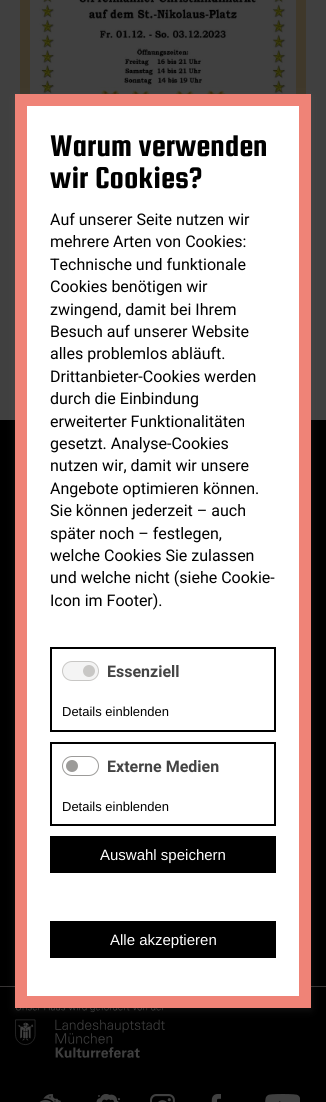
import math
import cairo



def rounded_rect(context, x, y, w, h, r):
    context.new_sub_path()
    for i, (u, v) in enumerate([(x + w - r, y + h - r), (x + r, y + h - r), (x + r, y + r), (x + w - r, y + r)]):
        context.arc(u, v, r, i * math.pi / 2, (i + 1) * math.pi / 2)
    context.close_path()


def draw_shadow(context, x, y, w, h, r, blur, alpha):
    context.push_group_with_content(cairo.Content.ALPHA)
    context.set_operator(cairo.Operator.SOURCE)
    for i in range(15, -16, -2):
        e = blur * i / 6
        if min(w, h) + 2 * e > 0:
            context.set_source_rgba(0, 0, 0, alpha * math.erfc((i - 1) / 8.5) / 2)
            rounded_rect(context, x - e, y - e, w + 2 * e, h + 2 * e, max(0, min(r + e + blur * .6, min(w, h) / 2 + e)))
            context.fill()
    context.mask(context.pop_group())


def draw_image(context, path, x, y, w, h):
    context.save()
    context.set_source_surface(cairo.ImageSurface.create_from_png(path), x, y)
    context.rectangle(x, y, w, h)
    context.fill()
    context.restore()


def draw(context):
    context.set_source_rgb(64 / 255, 64 / 255, 64 / 255)
    context.paint()
    context.set_source_rgb(63 / 255, 56 / 255, 42 / 255)
    context.rectangle(20, 0, 286, 94)
    context.fill()
    draw_image(context, "images/1.png", 30, 0, 266, 94)
    context.set_source_rgb(0, 0, 0)
    context.rectangle(0, 420, 326, 682)
    context.fill()
    context.set_source_rgb(55 / 255, 52 / 255, 52 / 255)
    context.rectangle(0, 986, 326, 1)
    context.fill()
    draw_image(context, "images/2.png", 15, 1008, 150, 50)
    draw_image(context, "images/3.png", 39, 1094, 22, 8)
    draw_image(context, "images/4.png", 96, 1094, 27, 8)
    draw_image(context, "images/5.png", 150, 1094, 25, 8)
    draw_image(context, "images/6.png", 211, 1094, 10, 8)
    draw_image(context, "images/7.png", 265, 1094, 35, 8)
    context.set_source_rgb(99 / 255, 99 / 255, 99 / 255)
    draw_shadow(context, 15, 96, 296, 914, 0, 4, 0.2)
    context.set_source_rgb(1, 1, 1)
    context.rectangle(21, 100, 284, 902)
    context.fill_preserve()
    context.set_source_rgb(239 / 255, 131 / 255, 119 / 255)
    context.set_line_width(12)
    context.stroke()
    context.rectangle(51, 648, 224, 83)
    context.set_source_rgb(0, 0, 0)
    context.set_line_width(2)
    context.stroke()
    context.set_source_rgb(244 / 255, 244 / 255, 244 / 255)
    rounded_rect(context, 62.5, 661.5, 36, 19, 9.5)
    context.fill_preserve()
    context.set_source_rgb(200 / 255, 199 / 255, 197 / 255)
    context.set_line_width(1)
    context.stroke()
    context.arc(89, 671, 6, 0, 2 * math.pi)
    context.fill()
    context.rectangle(51, 743, 224, 82)
    context.set_source_rgb(0, 0, 0)
    context.set_line_width(2)
    context.stroke()
    rounded_rect(context, 62.5, 756.5, 36, 19, 9.5)
    context.set_source_rgb(156 / 255, 155 / 255, 153 / 255)
    context.set_line_width(1)
    context.stroke()
    context.arc(72, 766, 6, 0, 2 * math.pi)
    context.fill()
    context.set_source_rgb(0, 0, 0)
    context.rectangle(50, 836, 226, 37)
    context.fill()
    context.rectangle(50, 921, 226, 37)
    context.fill()
    context.select_font_face("Squada One")
    context.set_font_size(32)
    context.move_to(50, 156)
    context.show_text("Warum verwenden")
    context.move_to(50, 188)
    context.show_text("wir Cookies?")
    context.select_font_face("Roboto")
    context.set_font_size(16)
    context.move_to(50, 225)
    context.show_text("Auf unserer Seite nutzen wir")
    context.move_to(50, 247)
    context.show_text("mehrere Arten von Cookies:")
    context.move_to(50, 270)
    context.show_text("Technische und funktionale")
    context.move_to(50, 292)
    context.show_text("Cookies benötigen wir")
    context.move_to(50, 315)
    context.show_text("zwingend, damit bei Ihrem")
    context.move_to(50, 337)
    context.show_text("Besuch auf unserer Website")
    context.move_to(50, 359)
    context.show_text("alles problemlos abläuft.")
    context.move_to(50, 382)
    context.show_text("Drittanbieter-Cookies werden")
    context.move_to(50, 404)
    context.show_text("durch die Einbindung")
    context.move_to(50, 427)
    context.show_text("erweiterter Funktionalitäten")
    context.move_to(50, 449)
    context.show_text("gesetzt. Analyse-Cookies")
    context.move_to(50, 471)
    context.show_text("nutzen wir, damit wir unsere")
    context.move_to(50, 494)
    context.show_text("Angebote optimieren können.")
    context.move_to(50, 516)
    context.show_text("Sie können jederzeit – auch")
    context.move_to(50, 539)
    context.show_text("später noch – festlegen,")
    context.move_to(50, 561)
    context.show_text("welche Cookies Sie zulassen")
    context.move_to(50, 583)
    context.show_text("und welche nicht (siehe Cookie-")
    context.move_to(50, 606)
    context.show_text("Icon im Footer).")
    context.select_font_face("Roboto", cairo.FontSlant.NORMAL, cairo.FontWeight.BOLD)
    context.set_source_rgb(68 / 255, 68 / 255, 68 / 255)
    context.move_to(107, 677)
    context.show_text("Essenziell")
    context.select_font_face("Liberation Sans")
    context.set_font_size(13)
    context.set_source_rgb(0, 0, 0)
    context.move_to(62, 716)
    context.show_text("Details einblenden")
    context.select_font_face("Roboto", cairo.FontSlant.NORMAL, cairo.FontWeight.BOLD)
    context.set_font_size(16)
    context.set_source_rgb(68 / 255, 68 / 255, 68 / 255)
    context.move_to(107, 772)
    context.show_text("Externe Medien")
    context.select_font_face("Liberation Sans")
    context.set_font_size(13)
    context.set_source_rgb(0, 0, 0)
    context.move_to(62, 811)
    context.show_text("Details einblenden")
    context.set_font_size(15)
    context.set_source_rgb(1, 1, 1)
    context.move_to(100, 860)
    context.show_text("Auswahl speichern")
    context.move_to(110, 945)
    context.show_text("Alle akzeptieren")


surface = cairo.ImageSurface(cairo.Format.RGB24, 326, 1102)
context = cairo.Context(surface)
options = cairo.FontOptions()
options.set_hint_metrics(cairo.HintMetrics.OFF)
options.set_hint_style(cairo.HintStyle.NONE)
context.set_font_options(options)
context.set_miter_limit(4)
draw(context)
surface.write_to_png("out.png")
